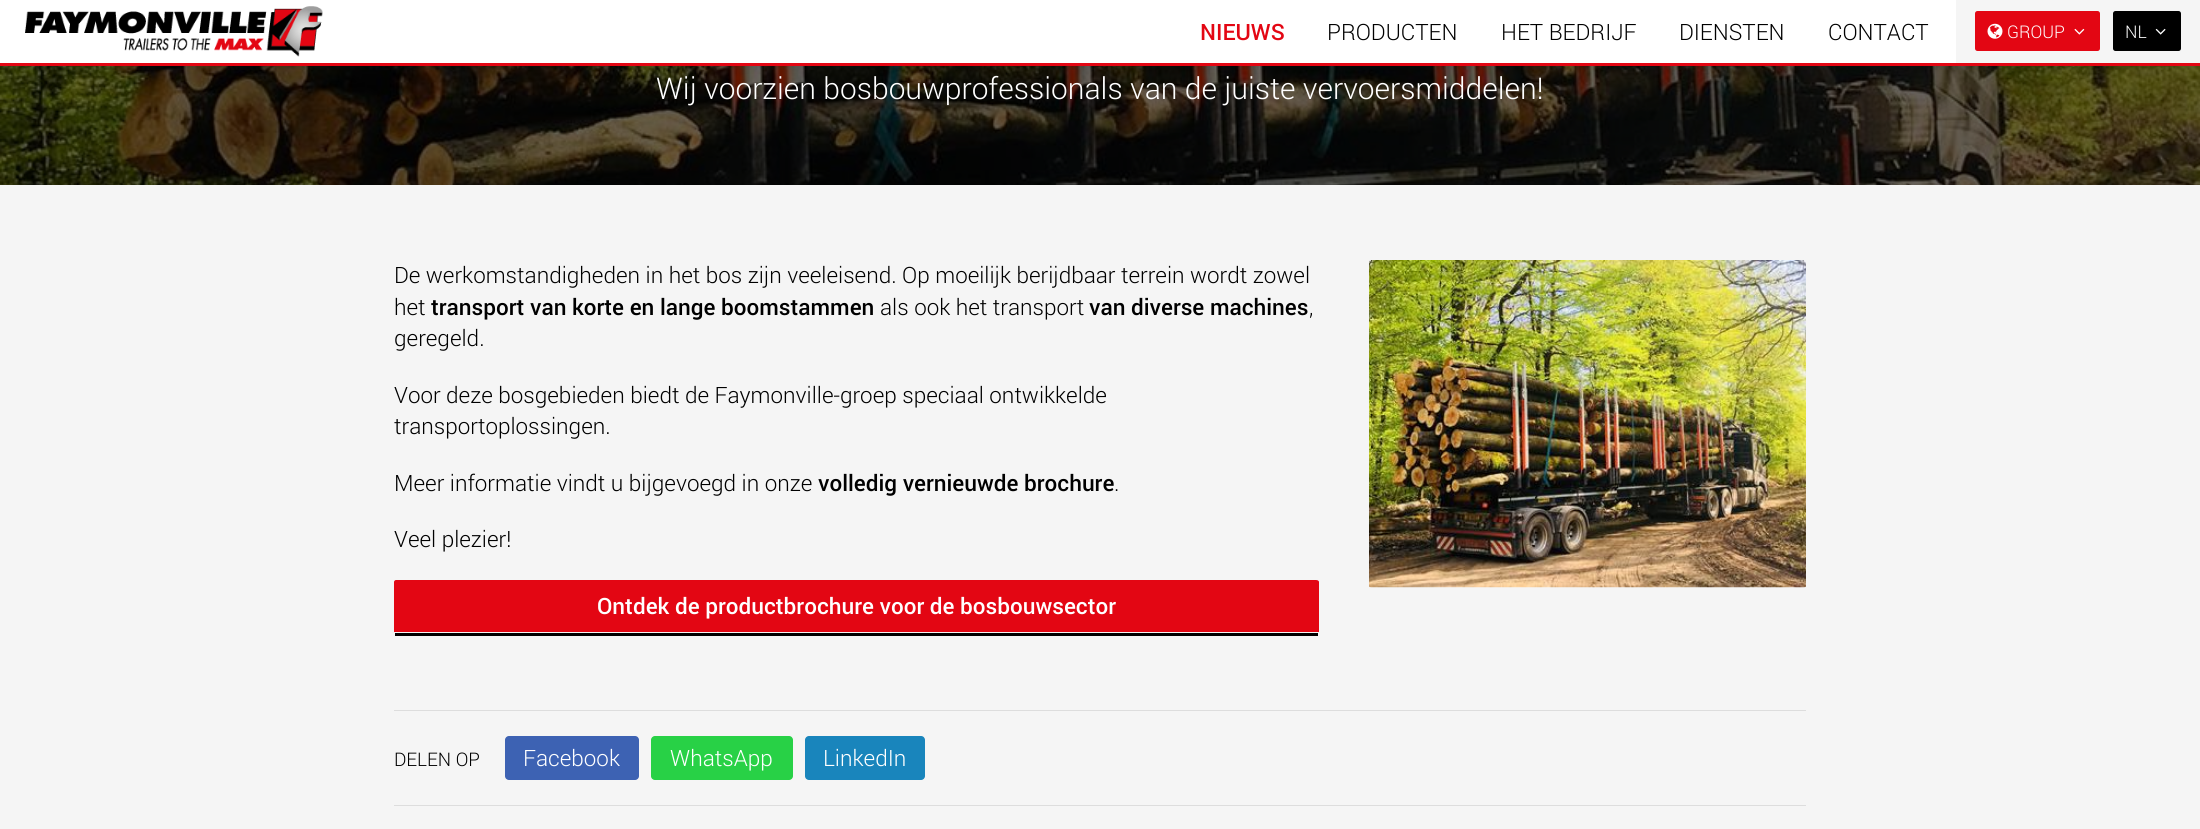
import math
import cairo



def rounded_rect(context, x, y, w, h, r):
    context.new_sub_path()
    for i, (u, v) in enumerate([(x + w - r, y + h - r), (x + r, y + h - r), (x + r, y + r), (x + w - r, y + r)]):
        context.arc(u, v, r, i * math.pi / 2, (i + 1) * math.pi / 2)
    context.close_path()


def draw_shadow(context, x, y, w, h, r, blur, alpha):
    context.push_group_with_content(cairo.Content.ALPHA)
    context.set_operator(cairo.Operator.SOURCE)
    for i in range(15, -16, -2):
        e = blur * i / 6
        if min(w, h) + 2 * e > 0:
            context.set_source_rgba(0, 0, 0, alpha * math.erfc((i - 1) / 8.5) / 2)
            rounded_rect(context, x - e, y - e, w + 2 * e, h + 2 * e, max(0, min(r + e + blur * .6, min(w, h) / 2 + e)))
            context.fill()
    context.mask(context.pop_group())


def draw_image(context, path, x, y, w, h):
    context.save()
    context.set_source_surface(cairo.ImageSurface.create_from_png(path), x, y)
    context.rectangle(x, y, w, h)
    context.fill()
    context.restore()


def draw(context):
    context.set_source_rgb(245 / 255, 245 / 255, 245 / 255)
    context.paint()
    draw_image(context, "images/5.png", 0, 66, 2200, 119)
    context.set_source_rgb(0, 0, 0)
    draw_shadow(context, 0, 0, 2200, 65, 0, 6, 0.1)
    context.set_source_rgb(1, 1, 1)
    context.rectangle(0, 0, 1956, 63)
    context.fill()
    context.set_source_rgb(227 / 255, 6 / 255, 19 / 255)
    context.rectangle(0, 63, 2200, 3)
    context.fill()
    draw_image(context, "images/1.png", 25, 6, 298, 51)
    context.set_source_rgb(245 / 255, 245 / 255, 245 / 255)
    context.rectangle(1956, 0, 244, 63)
    context.fill()
    context.set_source_rgb(227 / 255, 6 / 255, 19 / 255)
    rounded_rect(context, 1975, 11, 125, 40, 2.5)
    context.fill()
    draw_image(context, "images/2.png", 1987, 23, 16, 16)
    draw_image(context, "images/3.png", 2074, 28, 11, 7)
    context.set_source_rgb(0, 0, 0)
    rounded_rect(context, 2113, 11, 68, 40, 2.5)
    context.fill()
    draw_image(context, "images/4.png", 2155, 28, 11, 7)
    context.set_source_rgb(227 / 255, 6 / 255, 19 / 255)
    context.new_path()
    context.move_to(396, 580)
    context.line_to(1316, 580)
    context.curve_to(1318, 580, 1319, 581, 1319, 582)
    context.line_to(1319, 632)
    context.line_to(394, 632)
    context.line_to(394, 582)
    context.curve_to(394, 581, 395, 580, 396, 580)
    context.close_path()
    context.fill()
    context.set_source_rgb(0, 0, 0)
    context.rectangle(395, 633, 923, 3)
    context.fill()
    draw_image(context, "images/6.png", 1369, 260, 437, 328)
    context.set_source_rgb(221 / 255, 221 / 255, 221 / 255)
    context.rectangle(394, 710, 1412, 1)
    context.fill()
    context.rectangle(394, 805, 1412, 1)
    context.fill()
    context.set_source_rgb(61 / 255, 98 / 255, 179 / 255)
    rounded_rect(context, 505, 736, 134, 44, 4)
    context.fill()
    context.set_source_rgb(40 / 255, 209 / 255, 70 / 255)
    rounded_rect(context, 651, 736, 142, 44, 4)
    context.fill()
    context.set_source_rgb(25 / 255, 133 / 255, 188 / 255)
    rounded_rect(context, 805, 736, 120, 44, 4)
    context.fill()
    context.select_font_face("Roboto Medium")
    context.set_font_size(22.5)
    context.set_source_rgb(227 / 255, 6 / 255, 19 / 255)
    context.move_to(1200, 40)
    context.show_text("NIEUWS")
    context.select_font_face("Roboto Light")
    context.set_source_rgb(0, 0, 0)
    context.move_to(1327, 40)
    context.show_text("PRODUCTEN")
    context.move_to(1501, 40)
    context.show_text("HET BEDRIJF")
    context.move_to(1679, 40)
    context.show_text("DIENSTEN")
    context.move_to(1828, 40)
    context.show_text("CONTACT")
    context.set_font_size(17.5)
    context.set_source_rgb(1, 1, 1)
    context.move_to(2007, 38)
    context.show_text("GROUP")
    context.move_to(2125, 38)
    context.show_text("NL")
    context.set_font_size(30)
    context.move_to(656, 99)
    context.show_text("Wij voorzien bosbouwprofessionals van de juiste vervoersmiddelen!")
    context.set_font_size(22.5)
    context.set_source_rgb(0, 0, 0)
    context.move_to(394, 283)
    context.show_text("De werkomstandigheden in het bos zijn veeleisend. Op moeilijk berijdbaar terrein wordt zowel")
    context.move_to(394, 315)
    context.show_text("het")
    context.select_font_face("Roboto Medium")
    context.move_to(431, 315)
    context.show_text("transport van korte en lange boomstammen")
    context.select_font_face("Roboto Light")
    context.move_to(880, 315)
    context.show_text("als ook het transport")
    context.select_font_face("Roboto Medium")
    context.move_to(1089, 315)
    context.show_text("van diverse machines")
    context.select_font_face("Roboto Light")
    context.move_to(1309, 315)
    context.show_text(",")
    context.move_to(394, 346)
    context.show_text("geregeld.")
    context.move_to(394, 403)
    context.show_text("Voor deze bosgebieden biedt de Faymonville-groep speciaal ontwikkelde")
    context.move_to(394, 434)
    context.show_text("transportoplossingen.")
    context.move_to(394, 491)
    context.show_text("Meer informatie vindt u bijgevoegd in onze")
    context.select_font_face("Roboto Medium")
    context.move_to(818, 491)
    context.show_text("volledig vernieuwde brochure")
    context.select_font_face("Roboto Light")
    context.move_to(1114, 491)
    context.show_text(".")
    context.move_to(394, 547)
    context.show_text("Veel plezier!")
    context.select_font_face("Roboto Medium")
    context.set_source_rgb(1, 1, 1)
    context.move_to(597, 614)
    context.show_text("Ontdek de productbrochure voor de bosbouwsector")
    context.select_font_face("Roboto Light")
    context.set_font_size(18.75)
    context.set_source_rgb(0, 0, 0)
    context.move_to(394, 766)
    context.show_text("DELEN OP")
    context.set_font_size(22.5)
    context.set_source_rgb(1, 1, 1)
    context.move_to(523, 766)
    context.show_text("Facebook")
    context.move_to(670, 766)
    context.show_text("WhatsApp")
    context.move_to(823, 766)
    context.show_text("LinkedIn")


surface = cairo.ImageSurface(cairo.Format.RGB24, 2200, 829)
context = cairo.Context(surface)
options = cairo.FontOptions()
options.set_hint_metrics(cairo.HintMetrics.OFF)
options.set_hint_style(cairo.HintStyle.NONE)
context.set_font_options(options)
context.set_miter_limit(4)
draw(context)
surface.write_to_png("out.png")
